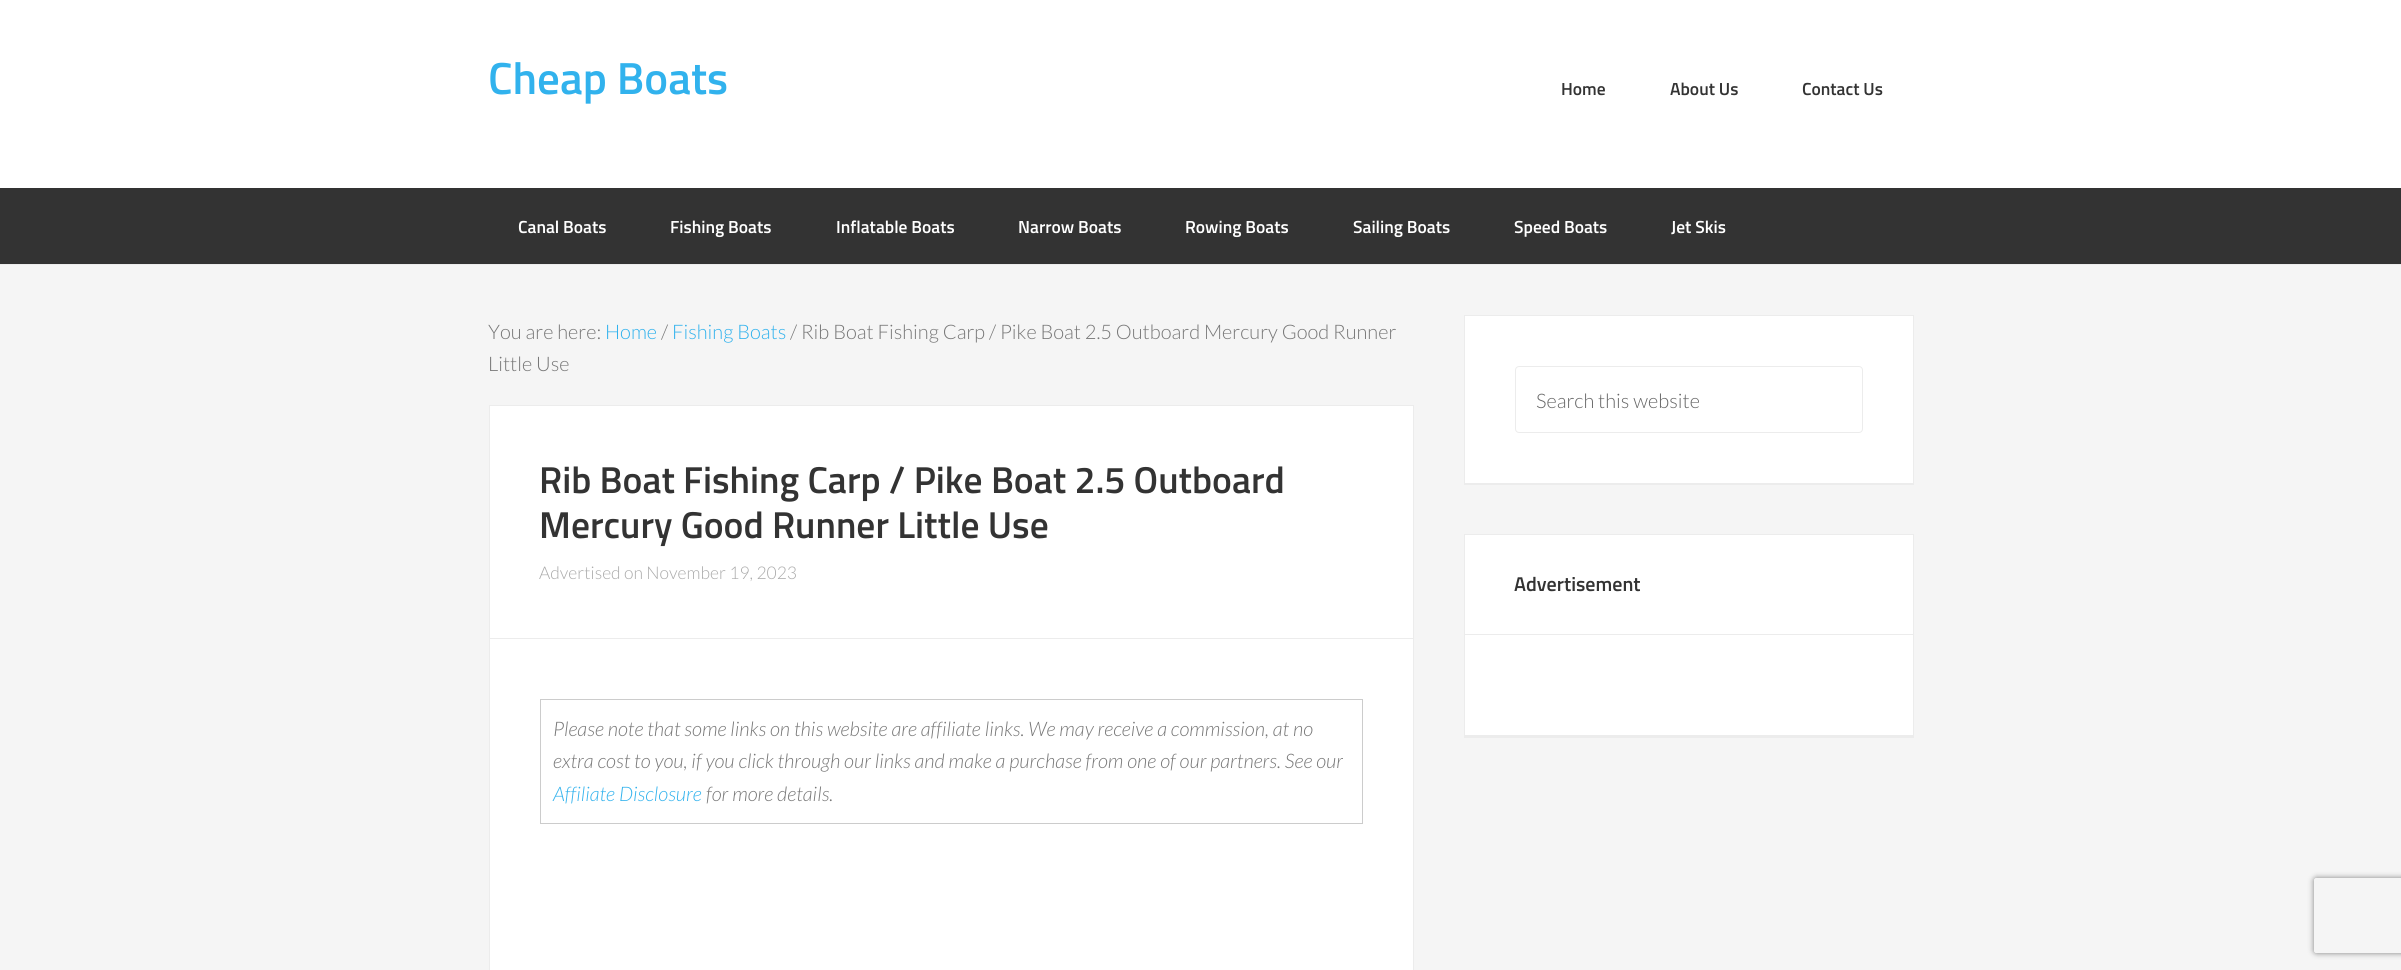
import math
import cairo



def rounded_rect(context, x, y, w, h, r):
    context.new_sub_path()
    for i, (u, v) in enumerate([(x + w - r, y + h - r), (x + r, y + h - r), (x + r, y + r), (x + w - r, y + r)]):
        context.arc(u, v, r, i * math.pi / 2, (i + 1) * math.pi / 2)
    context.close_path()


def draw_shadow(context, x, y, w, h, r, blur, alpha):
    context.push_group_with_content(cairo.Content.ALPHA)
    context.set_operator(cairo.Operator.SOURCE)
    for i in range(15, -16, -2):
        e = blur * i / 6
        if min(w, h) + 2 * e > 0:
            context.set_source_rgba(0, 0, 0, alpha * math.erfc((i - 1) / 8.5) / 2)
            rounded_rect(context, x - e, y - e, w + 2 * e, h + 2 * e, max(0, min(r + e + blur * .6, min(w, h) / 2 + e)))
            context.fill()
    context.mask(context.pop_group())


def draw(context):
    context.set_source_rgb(1, 1, 1)
    context.paint()
    context.set_source_rgb(51 / 255, 51 / 255, 51 / 255)
    context.rectangle(0, 188, 2401, 76)
    context.fill()
    context.set_source_rgb(245 / 255, 245 / 255, 245 / 255)
    context.rectangle(0, 265, 2401, 705)
    context.fill()
    context.set_source_rgb(236 / 255, 236 / 255, 236 / 255)
    context.rectangle(0, 264, 2401, 1)
    context.fill()
    context.set_source_rgb(1, 1, 1)
    context.rectangle(489.5, 405.5, 924, 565)
    context.fill_preserve()
    context.set_source_rgb(236 / 255, 236 / 255, 236 / 255)
    context.set_line_width(1)
    context.stroke()
    context.rectangle(490, 638, 923, 1)
    context.fill()
    context.rectangle(540.5, 699.5, 822, 124)
    context.set_source_rgb(204 / 255, 204 / 255, 204 / 255)
    context.stroke()
    context.set_source_rgb(236 / 255, 236 / 255, 236 / 255)
    context.new_path()
    context.move_to(1464, 484)
    context.line_to(1464, 485)
    context.line_to(1914, 485)
    context.line_to(1914, 316)
    context.line_to(1914, 484)
    context.close_path()
    context.fill()
    context.set_source_rgb(1, 1, 1)
    context.rectangle(1464.5, 315.5, 449, 168)
    context.fill_preserve()
    context.set_source_rgb(236 / 255, 236 / 255, 236 / 255)
    context.stroke()
    rounded_rect(context, 1515.5, 366.5, 347, 66, 3.5)
    context.stroke()
    context.new_path()
    context.move_to(1464, 736)
    context.line_to(1464, 738)
    context.line_to(1914, 738)
    context.line_to(1914, 535)
    context.line_to(1914, 736)
    context.close_path()
    context.fill()
    context.set_source_rgb(1, 1, 1)
    context.rectangle(1464.5, 534.5, 449, 201)
    context.fill_preserve()
    context.set_source_rgb(236 / 255, 236 / 255, 236 / 255)
    context.stroke()
    context.rectangle(1465, 634, 448, 1)
    context.fill()
    context.save()
    context.set_fill_rule(cairo.FillRule.EVEN_ODD)
    context.new_path()
    context.move_to(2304, 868)
    context.line_to(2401, 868)
    context.line_to(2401, 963)
    context.line_to(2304, 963)
    context.close_path()
    context.move_to(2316.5, 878)
    context.line_to(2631.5, 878)
    context.curve_to(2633, 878, 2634, 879, 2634, 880.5)
    context.line_to(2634, 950.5)
    context.curve_to(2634, 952, 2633, 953, 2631.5, 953)
    context.line_to(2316.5, 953)
    context.curve_to(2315, 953, 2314, 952, 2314, 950.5)
    context.line_to(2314, 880.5)
    context.curve_to(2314, 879, 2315, 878, 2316.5, 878)
    context.close_path()
    context.clip()
    context.set_source_rgb(128 / 255, 128 / 255, 128 / 255)
    draw_shadow(context, 2314, 878, 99, 75, 2.5, 3, 1)
    context.restore()
    context.select_font_face("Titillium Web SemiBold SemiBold")
    context.set_font_size(45)
    context.set_source_rgb(49 / 255, 178 / 255, 237 / 255)
    context.move_to(488, 94)
    context.show_text("Cheap Boats")
    context.set_font_size(17.5)
    context.set_source_rgb(51 / 255, 51 / 255, 51 / 255)
    context.move_to(1561, 95)
    context.show_text("Home")
    context.move_to(1670, 95)
    context.show_text("About Us")
    context.move_to(1802, 95)
    context.show_text("Contact Us")
    context.set_source_rgb(1, 1, 1)
    context.move_to(518, 233)
    context.show_text("Canal Boats")
    context.move_to(670, 233)
    context.show_text("Fishing Boats")
    context.move_to(836, 233)
    context.show_text("Inflatable Boats")
    context.move_to(1018, 233)
    context.show_text("Narrow Boats")
    context.move_to(1185, 233)
    context.show_text("Rowing Boats")
    context.move_to(1353, 233)
    context.show_text("Sailing Boats")
    context.move_to(1514, 233)
    context.show_text("Speed Boats")
    context.move_to(1671, 233)
    context.show_text("Jet Skis")
    context.select_font_face("Lato Light")
    context.set_font_size(20)
    context.set_source_rgb(119 / 255, 119 / 255, 119 / 255)
    context.move_to(488, 339)
    context.show_text("You are here:")
    context.set_source_rgb(49 / 255, 178 / 255, 237 / 255)
    context.move_to(605, 339)
    context.show_text("Home")
    context.set_source_rgb(119 / 255, 119 / 255, 119 / 255)
    context.move_to(661, 339)
    context.show_text("/")
    context.set_source_rgb(49 / 255, 178 / 255, 237 / 255)
    context.move_to(672, 339)
    context.show_text("Fishing Boats")
    context.set_source_rgb(119 / 255, 119 / 255, 119 / 255)
    context.move_to(790, 339)
    context.show_text("/ Rib Boat Fishing Carp / Pike Boat 2.5 Outboard Mercury Good Runner")
    context.move_to(488, 371)
    context.show_text("Little Use")
    context.select_font_face("Titillium Web SemiBold SemiBold")
    context.set_font_size(37.5)
    context.set_source_rgb(51 / 255, 51 / 255, 51 / 255)
    context.move_to(539, 493)
    context.show_text("Rib Boat Fishing Carp / Pike Boat 2.5 Outboard")
    context.move_to(539, 538)
    context.show_text("Mercury Good Runner Little Use")
    context.select_font_face("Lato Light")
    context.set_font_size(17.5)
    context.set_source_rgb(170 / 255, 170 / 255, 170 / 255)
    context.move_to(539, 579)
    context.show_text("Advertised on November 19, 2023")
    context.select_font_face("Lato Light", cairo.FontSlant.ITALIC)
    context.set_font_size(20)
    context.set_source_rgb(119 / 255, 119 / 255, 119 / 255)
    context.move_to(553, 736)
    context.show_text("Please note that some links on this website are affiliate links. We may receive a commission, at no")
    context.move_to(553, 768)
    context.show_text("extra cost to you, if you click through our links and make a purchase from one of our partners. See our")
    context.set_source_rgb(49 / 255, 178 / 255, 237 / 255)
    context.move_to(553, 801)
    context.show_text("Affiliate Disclosure")
    context.set_source_rgb(119 / 255, 119 / 255, 119 / 255)
    context.move_to(706, 801)
    context.show_text("for more details.")
    context.select_font_face("Lato Light")
    context.set_source_rgb(102 / 255, 102 / 255, 102 / 255)
    context.move_to(1536, 408)
    context.show_text("Search this website")
    context.select_font_face("Titillium Web SemiBold SemiBold")
    context.set_source_rgb(51 / 255, 51 / 255, 51 / 255)
    context.move_to(1514, 591)
    context.show_text("Advertisement")


surface = cairo.ImageSurface(cairo.Format.RGB24, 2401, 970)
context = cairo.Context(surface)
options = cairo.FontOptions()
options.set_hint_metrics(cairo.HintMetrics.OFF)
options.set_hint_style(cairo.HintStyle.NONE)
context.set_font_options(options)
context.set_miter_limit(4)
draw(context)
surface.write_to_png("out.png")
